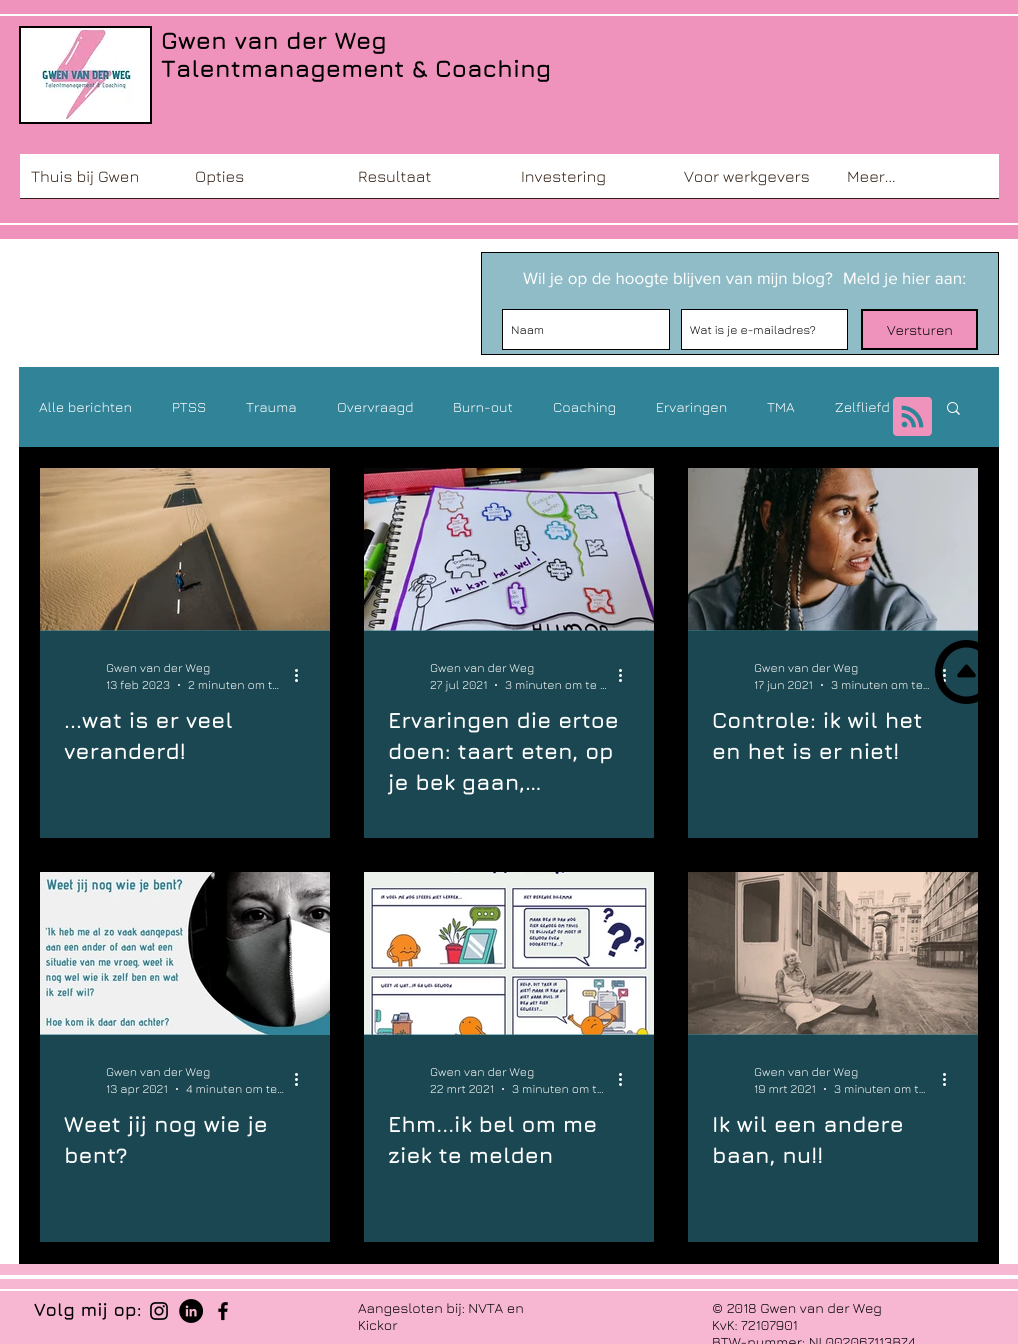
import math
import cairo



def draw_image(context, path, x, y, w, h):
    context.save()
    context.set_source_surface(cairo.ImageSurface.create_from_png(path), x, y)
    context.rectangle(x, y, w, h)
    context.fill()
    context.restore()


def draw(context):
    context.set_source_rgb(1, 1, 1)
    context.paint()
    context.set_source_rgb(239 / 255, 146 / 255, 188 / 255)
    context.rectangle(0, 0, 1018, 239)
    context.fill()
    context.set_source_rgb(1, 1, 1)
    context.rectangle(0, 14, 1018, 2)
    context.fill()
    context.rectangle(0, 223, 1018, 2)
    context.fill()
    context.set_source_rgb(0, 0, 0)
    context.rectangle(19, 26, 133, 98)
    context.fill()
    draw_image(context, "images/1.png", 21, 28, 129, 94)
    context.set_source_rgb(1, 1, 1)
    context.rectangle(20, 154, 979, 44)
    context.fill()
    context.set_source_rgb(52 / 255, 34 / 255, 22 / 255)
    context.rectangle(20, 198, 979, 1)
    context.fill()
    context.set_source_rgb(144 / 255, 188 / 255, 199 / 255)
    context.rectangle(481.5, 252.5, 517, 102)
    context.fill_preserve()
    context.set_source_rgb(0, 0, 0)
    context.set_line_width(1)
    context.stroke()
    context.set_source_rgb(1, 1, 1)
    context.rectangle(502.5, 309.5, 167, 40)
    context.fill_preserve()
    context.set_source_rgb(0, 0, 0)
    context.stroke()
    context.set_source_rgb(1, 1, 1)
    context.rectangle(681.5, 309.5, 166, 40)
    context.fill_preserve()
    context.set_source_rgb(0, 0, 0)
    context.stroke()
    context.set_source_rgb(239 / 255, 146 / 255, 188 / 255)
    context.rectangle(862, 310, 115, 39)
    context.fill_preserve()
    context.set_source_rgb(0, 0, 0)
    context.set_line_width(2)
    context.stroke()
    context.set_source_rgb(49 / 255, 131 / 255, 151 / 255)
    context.rectangle(19, 367, 980, 80)
    context.fill()
    draw_image(context, "images/2.png", 893, 397, 39, 39)
    context.set_source_rgb(0, 0, 0)
    context.rectangle(19, 447, 980, 817)
    context.fill()
    draw_image(context, "images/3.png", 947, 402, 13, 13)
    draw_image(context, "images/4.png", 40, 468, 290, 163)
    context.set_source_rgba(49 / 255, 131 / 255, 151 / 255, 0.54)
    context.rectangle(40, 630, 290, 208)
    context.fill()
    context.set_source_rgb(1, 1, 1)
    context.arc(179, 685, 1, 0, 2 * math.pi)
    context.fill()
    draw_image(context, "images/5.png", 295, 669, 3, 13)
    draw_image(context, "images/6.png", 364, 468, 290, 163)
    context.set_source_rgba(49 / 255, 131 / 255, 151 / 255, 0.54)
    context.rectangle(364, 630, 290, 208)
    context.fill()
    context.set_source_rgb(1, 1, 1)
    context.arc(496, 685, 1, 0, 2 * math.pi)
    context.fill()
    draw_image(context, "images/5.png", 619, 669, 3, 13)
    draw_image(context, "images/7.png", 688, 468, 284, 163)
    draw_image(context, "images/8.png", 972, 468, 6, 163)
    context.set_source_rgba(49 / 255, 131 / 255, 151 / 255, 0.54)
    context.rectangle(688, 630, 290, 208)
    context.fill()
    context.set_source_rgb(1, 1, 1)
    context.arc(822, 685, 1, 0, 2 * math.pi)
    context.fill()
    draw_image(context, "images/5.png", 943, 669, 3, 13)
    draw_image(context, "images/9.png", 40, 872, 290, 163)
    context.set_source_rgba(49 / 255, 131 / 255, 151 / 255, 0.54)
    context.rectangle(40, 1034, 290, 208)
    context.fill()
    context.set_source_rgb(1, 1, 1)
    context.arc(177, 1089, 1, 0, 2 * math.pi)
    context.fill()
    draw_image(context, "images/5.png", 295, 1073, 3, 13)
    draw_image(context, "images/10.png", 364, 872, 290, 163)
    context.set_source_rgba(49 / 255, 131 / 255, 151 / 255, 0.54)
    context.rectangle(364, 1034, 290, 208)
    context.fill()
    context.set_source_rgb(1, 1, 1)
    context.arc(503, 1089, 1, 0, 2 * math.pi)
    context.fill()
    draw_image(context, "images/5.png", 619, 1073, 3, 13)
    draw_image(context, "images/11.png", 688, 872, 290, 163)
    context.set_source_rgba(49 / 255, 131 / 255, 151 / 255, 0.54)
    context.rectangle(688, 1034, 290, 208)
    context.fill()
    context.set_source_rgb(1, 1, 1)
    context.arc(825, 1089, 1, 0, 2 * math.pi)
    context.fill()
    draw_image(context, "images/5.png", 943, 1073, 3, 13)
    draw_image(context, "images/12.png", 935, 640, 43, 64)
    context.set_source_rgb(247 / 255, 183 / 255, 211 / 255)
    context.rectangle(0, 1264, 1018, 80)
    context.fill()
    context.set_source_rgb(1, 1, 1)
    context.rectangle(0, 1275, 1018, 4)
    context.fill()
    context.rectangle(0, 1289, 1018, 2)
    context.fill()
    draw_image(context, "images/13.png", 150, 1302, 18, 18)
    draw_image(context, "images/14.png", 179, 1299, 24, 24)
    draw_image(context, "images/15.png", 218, 1301, 10, 20)
    context.select_font_face("Jura", cairo.FontSlant.NORMAL, cairo.FontWeight.BOLD)
    context.set_font_size(24)
    context.set_source_rgb(0, 0, 0)
    context.move_to(161, 49)
    context.show_text("Gwen van der Weg")
    context.move_to(161, 77)
    context.show_text("Talentmanagement & Coaching")
    context.select_font_face("Jura")
    context.set_font_size(16)
    context.set_source_rgb(52 / 255, 34 / 255, 22 / 255)
    context.move_to(31, 182)
    context.show_text("Thuis bij Gwen")
    context.move_to(195, 182)
    context.show_text("Opties")
    context.move_to(358, 182)
    context.show_text("Resultaat")
    context.move_to(521, 182)
    context.show_text("Investering")
    context.move_to(684, 182)
    context.show_text("Voor werkgevers")
    context.move_to(847, 182)
    context.show_text("Meer...")
    context.select_font_face("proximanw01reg")
    context.set_font_size(17)
    context.set_source_rgb(1, 1, 1)
    context.move_to(523, 284)
    context.show_text("Wil je op de hoogte blijven van mijn blog?")
    context.move_to(843, 284)
    context.show_text("Meld je hier aan:")
    context.select_font_face("Jura")
    context.set_font_size(12)
    context.set_source_rgb(0, 0, 0)
    context.move_to(511, 334)
    context.show_text("Naam")
    context.move_to(690, 334)
    context.show_text("Wat is je e-mailadres?")
    context.set_font_size(14)
    context.move_to(887, 335)
    context.show_text("Versturen")
    context.set_source_rgb(1, 1, 1)
    context.move_to(39, 412)
    context.show_text("Alle berichten")
    context.move_to(172, 412)
    context.show_text("PTSS")
    context.move_to(246, 412)
    context.show_text("Trauma")
    context.move_to(337, 412)
    context.show_text("Overvraagd")
    context.move_to(453, 412)
    context.show_text("Burn-out")
    context.move_to(553, 412)
    context.show_text("Coaching")
    context.move_to(656, 412)
    context.show_text("Ervaringen")
    context.move_to(767, 412)
    context.show_text("TMA")
    context.move_to(835, 412)
    context.show_text("Zelfliefd")
    context.set_font_size(12)
    context.move_to(106, 672)
    context.show_text("Gwen van der Weg")
    context.move_to(106, 689)
    context.show_text("13 feb 2023")
    context.move_to(188, 689)
    context.show_text("2 minuten om t…")
    context.select_font_face("Jura", cairo.FontSlant.NORMAL, cairo.FontWeight.BOLD)
    context.set_font_size(22)
    context.move_to(64, 728)
    context.show_text("...wat is er veel")
    context.move_to(64, 759)
    context.show_text("veranderd!")
    context.select_font_face("Jura")
    context.set_font_size(12)
    context.move_to(430, 672)
    context.show_text("Gwen van der Weg")
    context.move_to(430, 689)
    context.show_text("27 jul 2021")
    context.move_to(505, 689)
    context.show_text("3 minuten om te …")
    context.select_font_face("Jura", cairo.FontSlant.NORMAL, cairo.FontWeight.BOLD)
    context.set_font_size(22)
    context.move_to(388, 728)
    context.show_text("Ervaringen die ertoe")
    context.move_to(388, 759)
    context.show_text("doen: taart eten, op")
    context.move_to(388, 790)
    context.show_text("je bek gaan,…")
    context.select_font_face("Jura")
    context.set_font_size(12)
    context.move_to(754, 672)
    context.show_text("Gwen van der Weg")
    context.move_to(754, 689)
    context.show_text("17 jun 2021")
    context.move_to(831, 689)
    context.show_text("3 minuten om te…")
    context.select_font_face("Jura", cairo.FontSlant.NORMAL, cairo.FontWeight.BOLD)
    context.set_font_size(22)
    context.move_to(712, 728)
    context.show_text("Controle: ik wil het")
    context.move_to(712, 759)
    context.show_text("en het is er niet!")
    context.select_font_face("Jura")
    context.set_font_size(12)
    context.move_to(106, 1076)
    context.show_text("Gwen van der Weg")
    context.move_to(106, 1093)
    context.show_text("13 apr 2021")
    context.move_to(186, 1093)
    context.show_text("4 minuten om te…")
    context.select_font_face("Jura", cairo.FontSlant.NORMAL, cairo.FontWeight.BOLD)
    context.set_font_size(22)
    context.move_to(64, 1132)
    context.show_text("Weet jij nog wie je")
    context.move_to(64, 1163)
    context.show_text("bent?")
    context.select_font_face("Jura")
    context.set_font_size(12)
    context.move_to(430, 1076)
    context.show_text("Gwen van der Weg")
    context.move_to(430, 1093)
    context.show_text("22 mrt 2021")
    context.move_to(512, 1093)
    context.show_text("3 minuten om t…")
    context.select_font_face("Jura", cairo.FontSlant.NORMAL, cairo.FontWeight.BOLD)
    context.set_font_size(22)
    context.move_to(388, 1132)
    context.show_text("Ehm...ik bel om me")
    context.move_to(388, 1163)
    context.show_text("ziek te melden")
    context.select_font_face("Jura")
    context.set_font_size(12)
    context.move_to(754, 1076)
    context.show_text("Gwen van der Weg")
    context.move_to(754, 1093)
    context.show_text("19 mrt 2021")
    context.move_to(834, 1093)
    context.show_text("3 minuten om t…")
    context.select_font_face("Jura", cairo.FontSlant.NORMAL, cairo.FontWeight.BOLD)
    context.set_font_size(22)
    context.move_to(712, 1132)
    context.show_text("Ik wil een andere")
    context.move_to(712, 1163)
    context.show_text("baan, nu!!")
    context.set_font_size(18)
    context.set_source_rgb(0, 0, 0)
    context.move_to(34, 1316)
    context.show_text("Volg mij op:")
    context.select_font_face("Jura")
    context.set_font_size(14)
    context.move_to(358, 1313)
    context.show_text("Aangesloten bij: NVTA en")
    context.move_to(358, 1330)
    context.show_text("Kickor")
    context.move_to(712, 1313)
    context.show_text("© 2018 Gwen van der Weg")
    context.move_to(712, 1330)
    context.show_text("KvK: 72107901")
    context.move_to(712, 1347)
    context.show_text("BTW-nummer: NL002067113B74")


surface = cairo.ImageSurface(cairo.Format.RGB24, 1018, 1344)
context = cairo.Context(surface)
options = cairo.FontOptions()
options.set_hint_metrics(cairo.HintMetrics.OFF)
options.set_hint_style(cairo.HintStyle.NONE)
context.set_font_options(options)
context.set_miter_limit(4)
draw(context)
surface.write_to_png("out.png")
